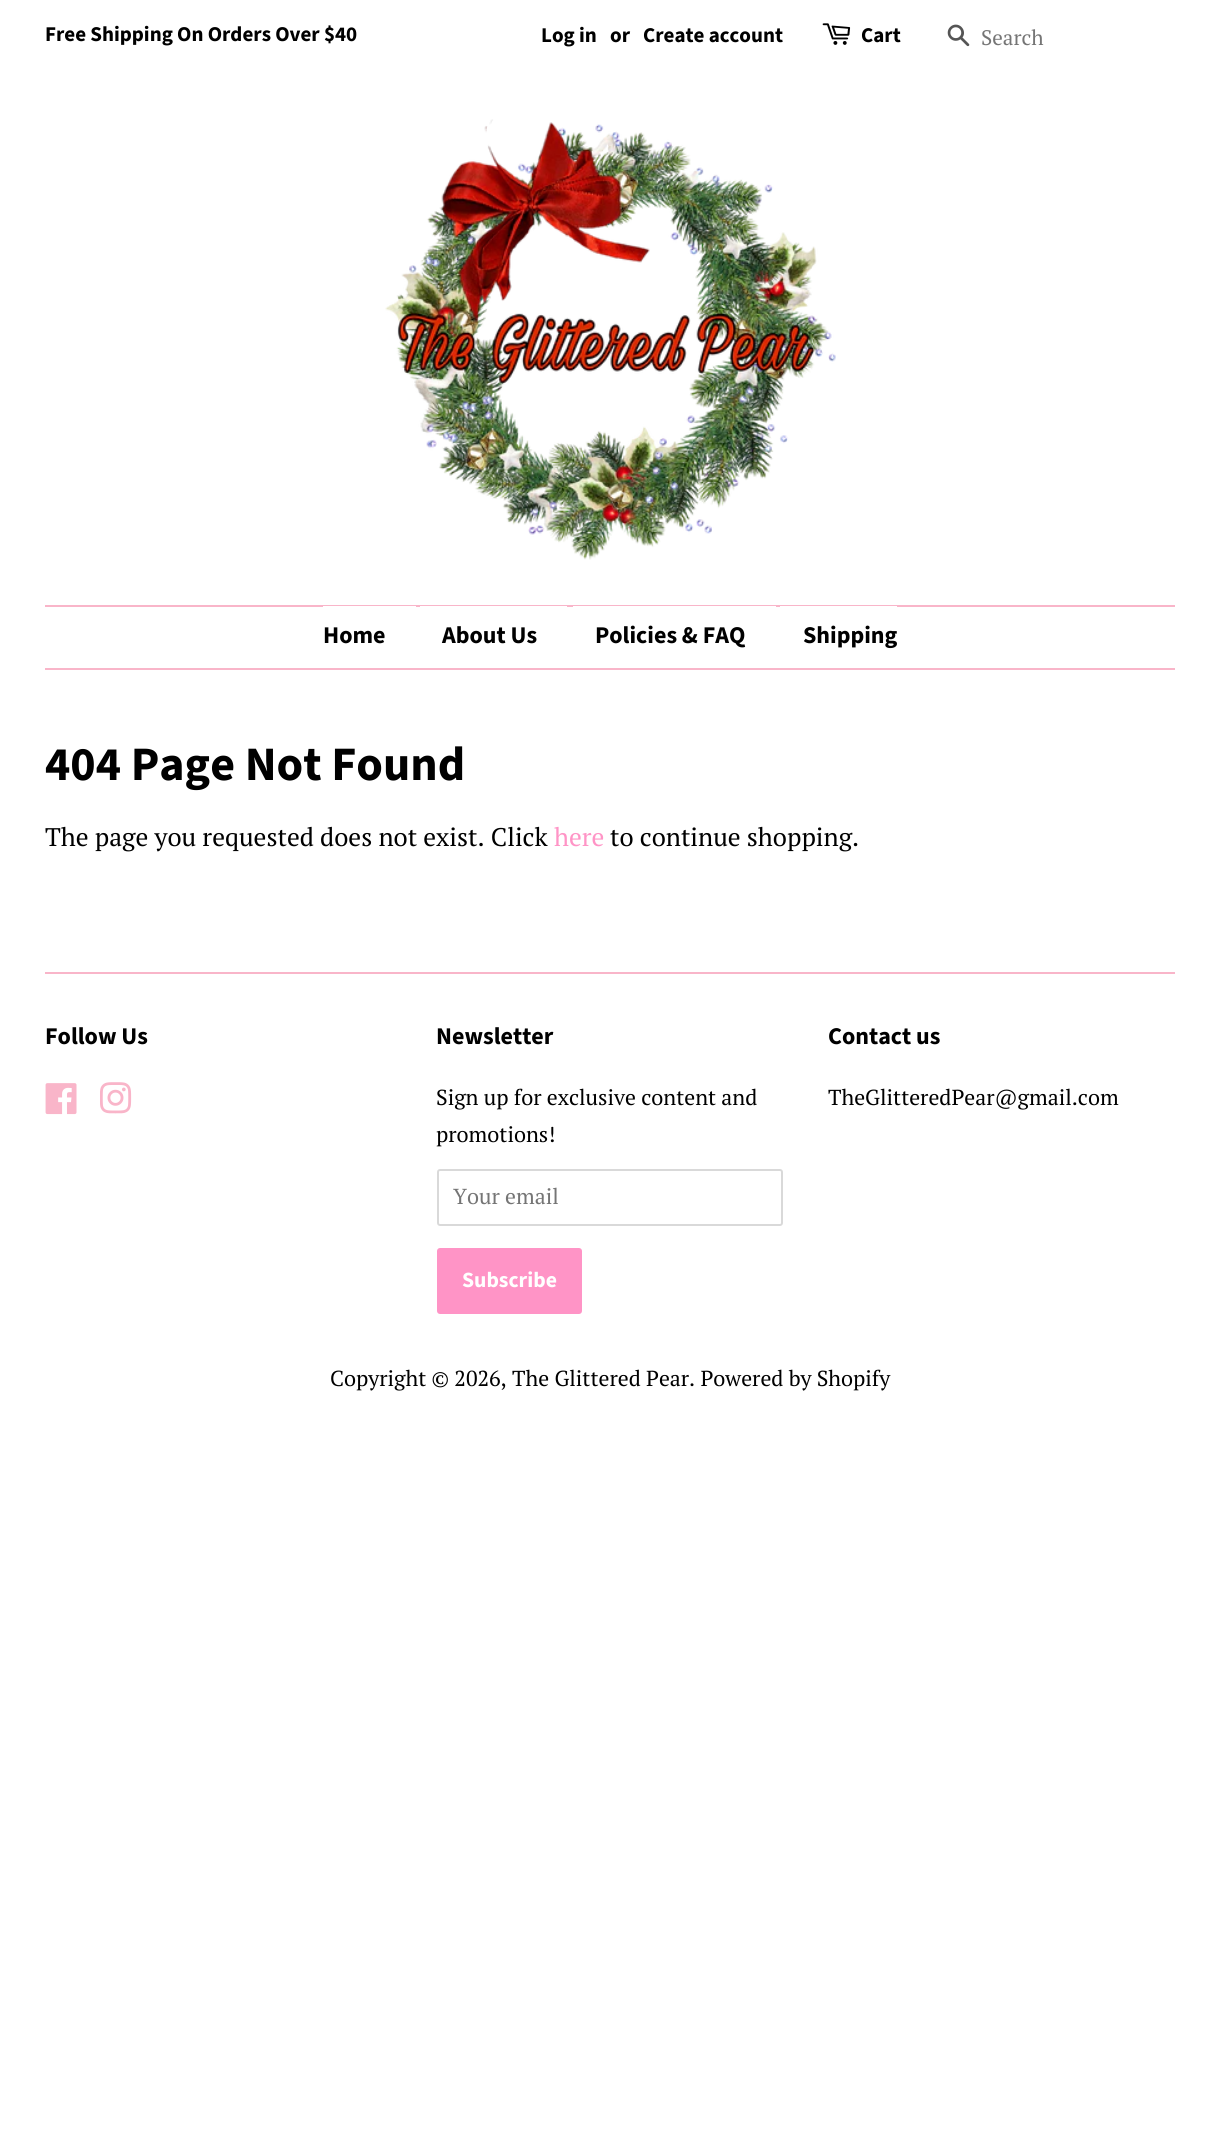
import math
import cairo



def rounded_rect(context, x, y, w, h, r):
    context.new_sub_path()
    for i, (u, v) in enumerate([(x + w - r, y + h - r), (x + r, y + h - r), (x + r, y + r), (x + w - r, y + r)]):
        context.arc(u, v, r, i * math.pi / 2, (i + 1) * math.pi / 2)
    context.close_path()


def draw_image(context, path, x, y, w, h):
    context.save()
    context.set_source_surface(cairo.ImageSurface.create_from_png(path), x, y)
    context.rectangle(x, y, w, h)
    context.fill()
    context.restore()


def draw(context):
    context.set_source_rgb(1, 1, 1)
    context.paint()
    draw_image(context, "images/1.png", 822, 23, 29, 22)
    draw_image(context, "images/2.png", 947, 24, 23, 23)
    draw_image(context, "images/3.png", 385, 119, 451, 441)
    context.set_source_rgb(249 / 255, 181 / 255, 201 / 255)
    context.rectangle(45, 605, 1130, 2)
    context.fill()
    context.rectangle(45, 668, 1130, 2)
    context.fill()
    context.set_source_rgb(1, 1, 1)
    context.rectangle(323, 606, 93, 1)
    context.fill()
    context.rectangle(420, 606, 147, 1)
    context.fill()
    context.rectangle(573, 606, 203, 1)
    context.fill()
    context.rectangle(780, 606, 117, 1)
    context.fill()
    context.set_source_rgb(249 / 255, 181 / 255, 201 / 255)
    context.rectangle(45, 972, 1130, 2)
    context.fill()
    draw_image(context, "images/4.png", 45, 1083, 32, 32)
    draw_image(context, "images/5.png", 100, 1082, 32, 32)
    rounded_rect(context, 438, 1170, 344, 55, 2)
    context.set_source_rgb(217 / 255, 217 / 255, 217 / 255)
    context.stroke()
    context.set_source_rgb(1, 148 / 255, 198 / 255)
    rounded_rect(context, 437, 1248, 145, 66, 3)
    context.fill()
    context.select_font_face("Source Sans Pro", cairo.FontSlant.NORMAL, cairo.FontWeight.BOLD)
    context.set_font_size(21)
    context.set_source_rgb(0, 0, 0)
    context.move_to(45, 41)
    context.show_text("Free Shipping On Orders Over $40")
    context.move_to(541, 42)
    context.show_text("Log in")
    context.move_to(610, 42)
    context.show_text("or")
    context.move_to(643, 42)
    context.show_text("Create account")
    context.move_to(861, 42)
    context.show_text("Cart")
    context.select_font_face("PT Serif")
    context.set_source_rgb(117 / 255, 117 / 255, 117 / 255)
    context.move_to(981, 45)
    context.show_text("Search")
    context.select_font_face("Source Sans Pro", cairo.FontSlant.NORMAL, cairo.FontWeight.BOLD)
    context.set_font_size(24)
    context.set_source_rgb(0, 0, 0)
    context.move_to(323, 643)
    context.show_text("Home")
    context.move_to(442, 643)
    context.show_text("About Us")
    context.move_to(595, 643)
    context.show_text("Policies & FAQ")
    context.move_to(803, 643)
    context.show_text("Shipping")
    context.set_font_size(48)
    context.move_to(45, 780)
    context.show_text("404 Page Not Found")
    context.select_font_face("PT Serif")
    context.set_font_size(25.5)
    context.move_to(45, 846)
    context.show_text("The page you requested does not exist. Click")
    context.set_source_rgb(1, 148 / 255, 198 / 255)
    context.move_to(554, 846)
    context.show_text("here")
    context.set_source_rgb(0, 0, 0)
    context.move_to(610, 846)
    context.show_text("to continue shopping.")
    context.select_font_face("Source Sans Pro", cairo.FontSlant.NORMAL, cairo.FontWeight.BOLD)
    context.set_font_size(24)
    context.move_to(45, 1044)
    context.show_text("Follow Us")
    context.move_to(436, 1044)
    context.show_text("Newsletter")
    context.select_font_face("PT Serif")
    context.set_font_size(21.7)
    context.move_to(436, 1105)
    context.show_text("Sign up for exclusive content and")
    context.move_to(436, 1142)
    context.show_text("promotions!")
    context.set_source_rgb(117 / 255, 117 / 255, 117 / 255)
    context.move_to(453, 1204)
    context.show_text("Your email")
    context.select_font_face("Source Sans Pro", cairo.FontSlant.NORMAL, cairo.FontWeight.BOLD)
    context.set_source_rgb(1, 1, 1)
    context.move_to(462, 1287)
    context.show_text("Subscribe")
    context.set_font_size(24)
    context.set_source_rgb(0, 0, 0)
    context.move_to(828, 1044)
    context.show_text("Contact us")
    context.select_font_face("PT Serif")
    context.set_font_size(21.7)
    context.move_to(828, 1105)
    context.show_text("TheGlitteredPear@gmail.com")
    context.move_to(330, 1386)
    context.show_text("Copyright © 2026, The Glittered Pear. Powered by Shopify")


surface = cairo.ImageSurface(cairo.Format.RGB24, 1219, 2143)
context = cairo.Context(surface)
options = cairo.FontOptions()
options.set_hint_metrics(cairo.HintMetrics.OFF)
options.set_hint_style(cairo.HintStyle.NONE)
context.set_font_options(options)
context.set_miter_limit(4)
draw(context)
surface.write_to_png("out.png")
